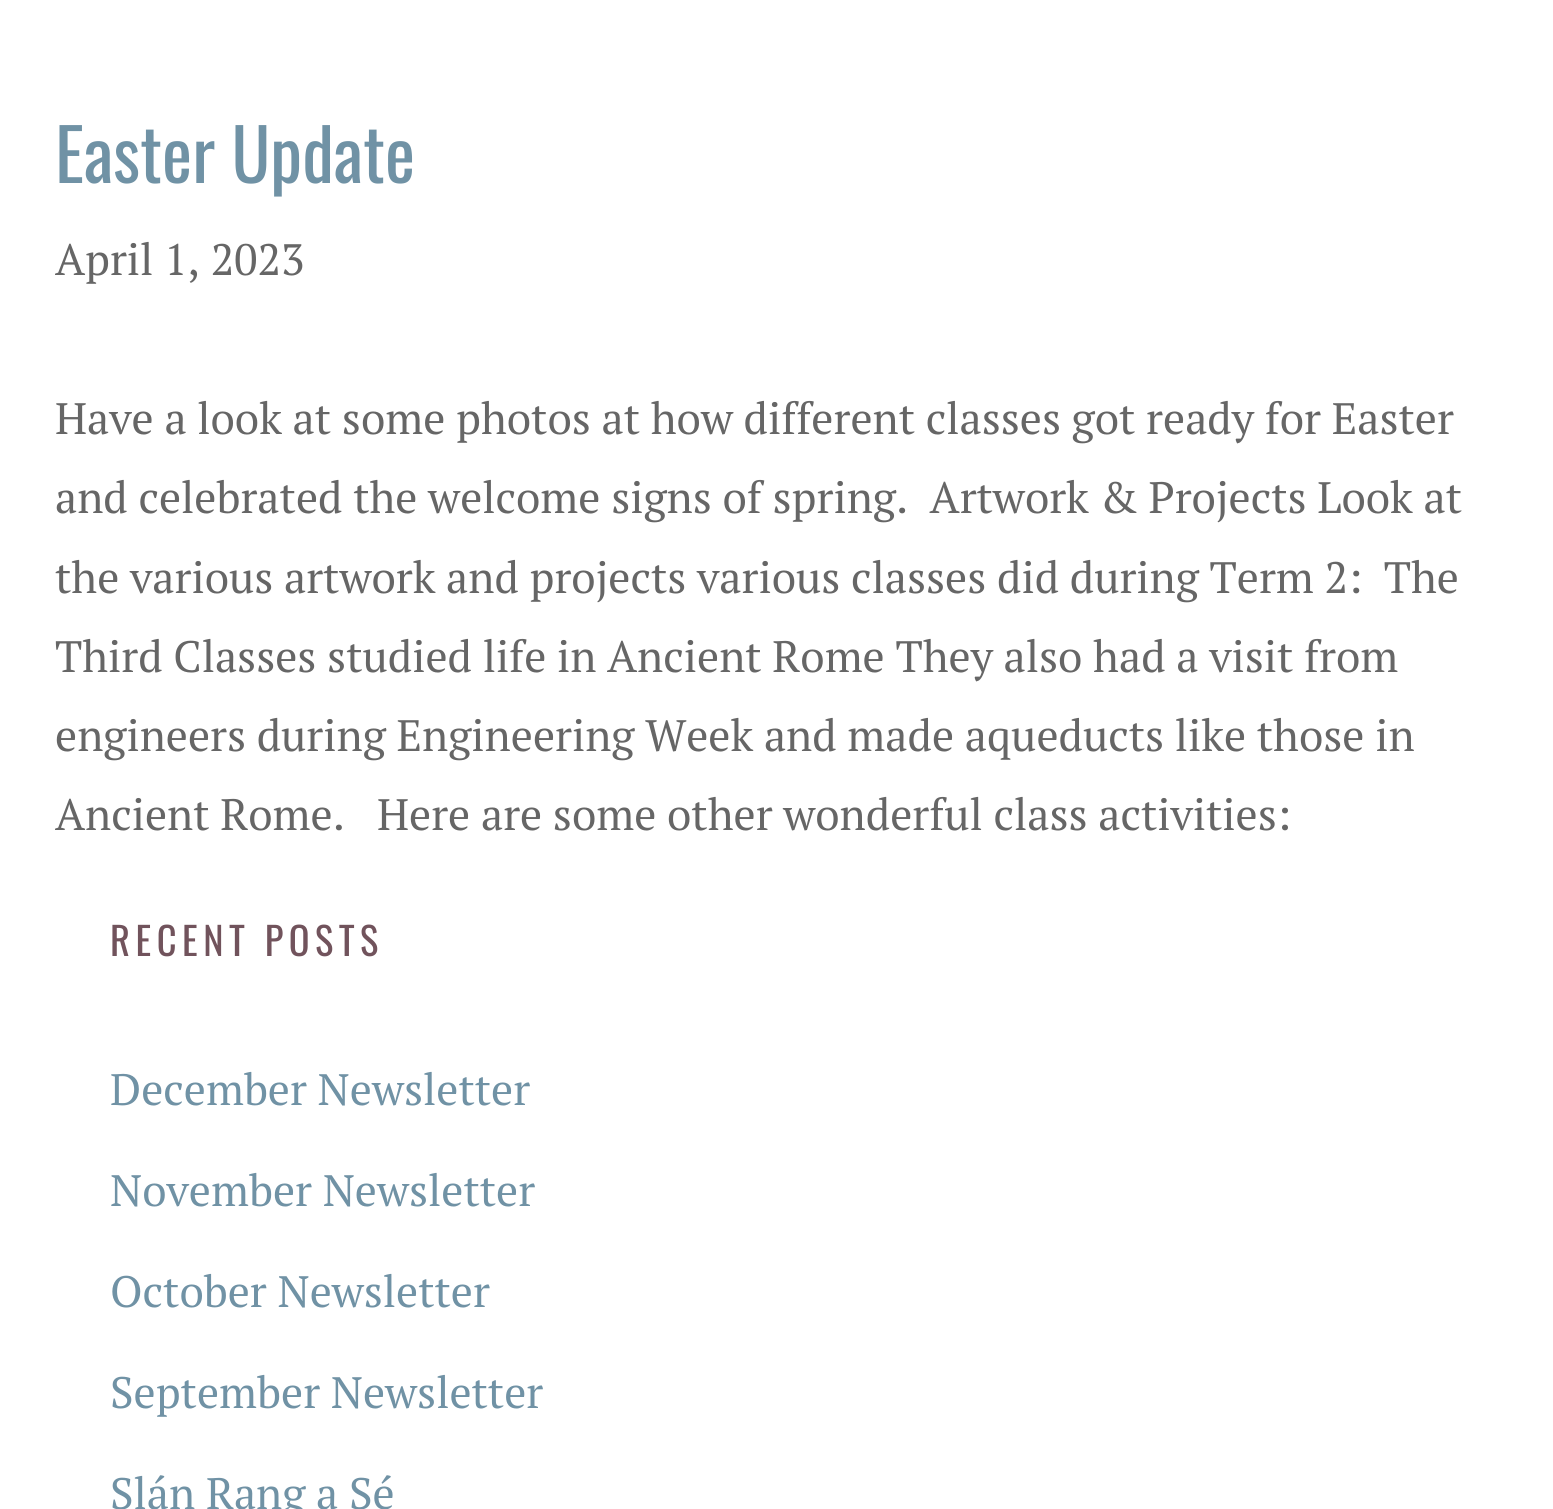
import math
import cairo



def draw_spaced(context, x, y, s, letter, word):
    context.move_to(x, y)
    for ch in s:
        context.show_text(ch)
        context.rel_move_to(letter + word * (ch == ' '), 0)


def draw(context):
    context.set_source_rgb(1, 1, 1)
    context.paint()
    context.select_font_face("Oswald")
    context.set_font_size(71.5)
    context.set_source_rgb(112 / 255, 146 / 255, 165 / 255)
    context.move_to(55, 183)
    context.show_text("Easter Update")
    context.select_font_face("PT Serif")
    context.set_font_size(44)
    context.set_source_rgb(102 / 255, 102 / 255, 102 / 255)
    context.move_to(55, 275)
    context.show_text("April 1, 2023")
    context.move_to(55, 434)
    context.show_text("Have a look at some photos at how different classes got ready for Easter")
    context.move_to(55, 513)
    context.show_text("and celebrated the welcome signs of spring.  Artwork & Projects Look at")
    context.move_to(55, 593)
    context.show_text("the various artwork and projects various classes did during Term 2:  The")
    context.move_to(55, 672)
    context.show_text("Third Classes studied life in Ancient Rome They also had a visit from")
    context.move_to(55, 751)
    context.show_text("engineers during Engineering Week and made aqueducts like those in")
    context.move_to(55, 830)
    context.show_text("Ancient Rome.   Here are some other wonderful class activities:")
    context.select_font_face("Oswald")
    context.set_font_size(38.5)
    context.set_source_rgb(113 / 255, 83 / 255, 92 / 255)
    draw_spaced(context, 110, 956, "RECENT POSTS", 5.5, 0)
    context.select_font_face("PT Serif")
    context.set_font_size(44)
    context.set_source_rgb(112 / 255, 146 / 255, 165 / 255)
    context.move_to(110, 1105)
    context.show_text("December Newsletter")
    context.move_to(110, 1206)
    context.show_text("November Newsletter")
    context.move_to(110, 1307)
    context.show_text("October Newsletter")
    context.move_to(110, 1408)
    context.show_text("September Newsletter")
    context.move_to(110, 1509)
    context.show_text("Slán Rang a Sé")


surface = cairo.ImageSurface(cairo.Format.RGB24, 1553, 1509)
context = cairo.Context(surface)
options = cairo.FontOptions()
options.set_hint_metrics(cairo.HintMetrics.OFF)
options.set_hint_style(cairo.HintStyle.NONE)
context.set_font_options(options)
context.set_miter_limit(4)
draw(context)
surface.write_to_png("out.png")
